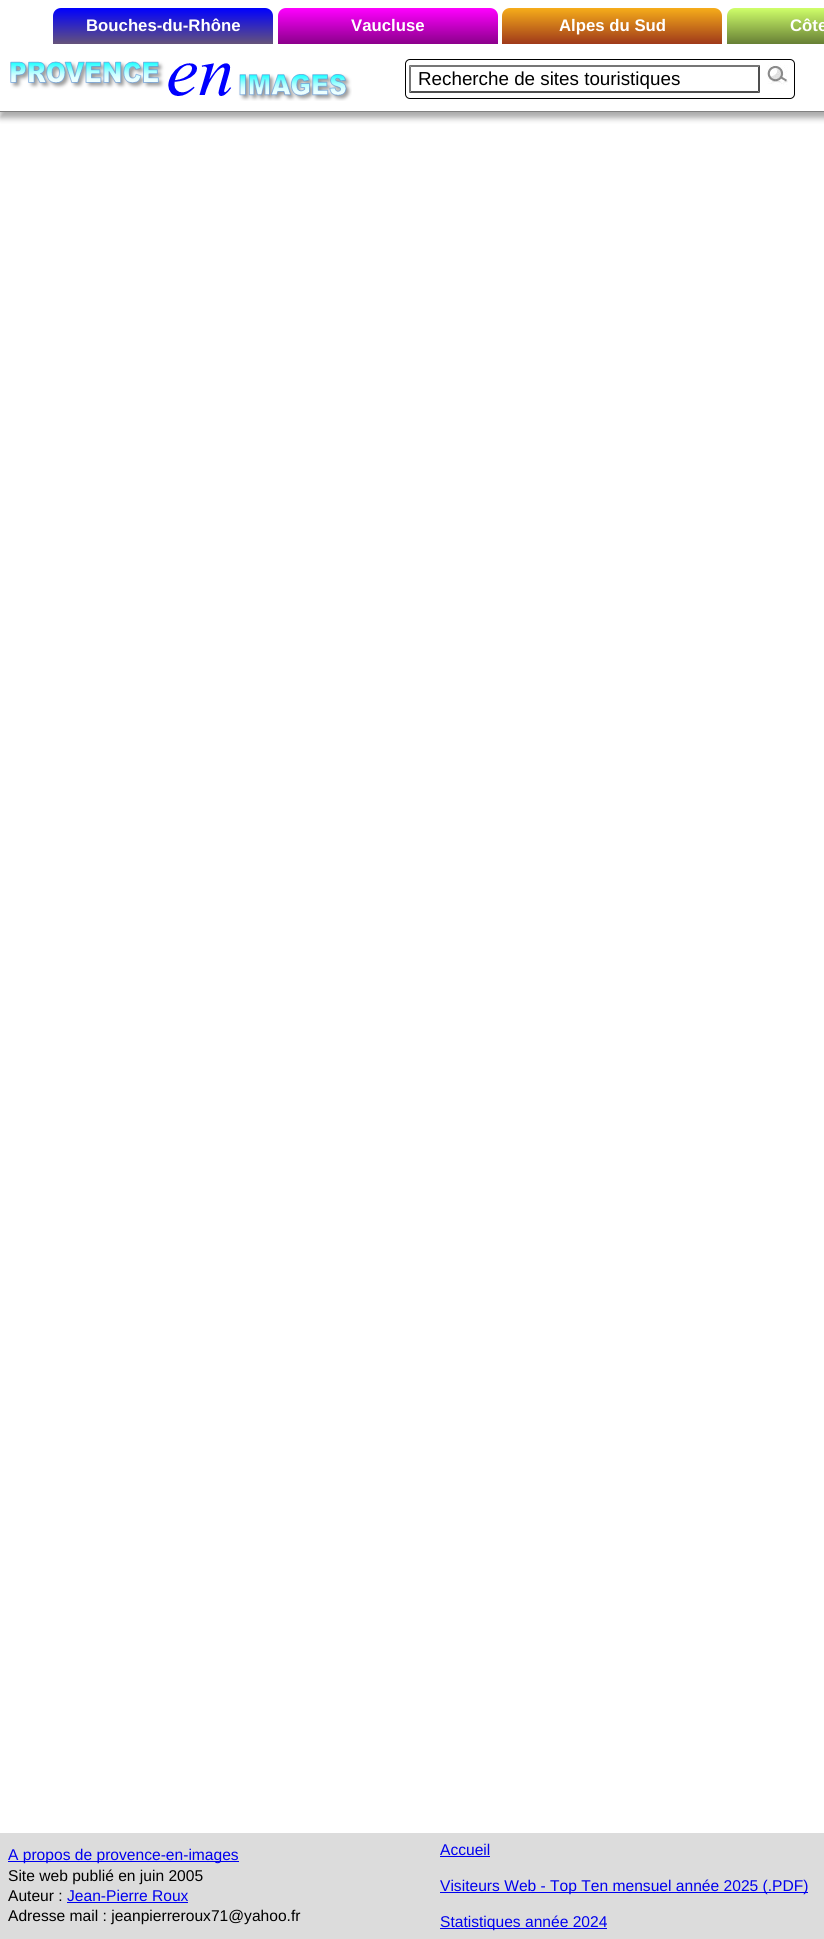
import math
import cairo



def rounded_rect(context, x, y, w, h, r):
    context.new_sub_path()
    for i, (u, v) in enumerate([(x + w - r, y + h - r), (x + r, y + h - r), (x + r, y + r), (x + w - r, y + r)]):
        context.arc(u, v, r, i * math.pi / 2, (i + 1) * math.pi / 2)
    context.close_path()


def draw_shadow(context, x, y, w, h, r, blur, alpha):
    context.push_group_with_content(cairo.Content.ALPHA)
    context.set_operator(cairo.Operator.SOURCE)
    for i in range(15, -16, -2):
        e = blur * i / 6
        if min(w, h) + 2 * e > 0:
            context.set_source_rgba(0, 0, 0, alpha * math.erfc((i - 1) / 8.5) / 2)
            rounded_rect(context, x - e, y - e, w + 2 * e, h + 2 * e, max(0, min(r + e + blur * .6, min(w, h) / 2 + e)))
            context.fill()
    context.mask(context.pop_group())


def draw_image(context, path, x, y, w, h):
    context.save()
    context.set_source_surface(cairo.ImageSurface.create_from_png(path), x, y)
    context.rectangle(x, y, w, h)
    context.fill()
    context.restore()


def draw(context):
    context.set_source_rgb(1, 1, 1)
    context.paint()
    gradient = cairo.LinearGradient(163, 8, 163, 44)
    gradient.add_color_stop_rgba(0, 0, 0, 1, 1)
    gradient.add_color_stop_rgba(1, 101 / 255, 83 / 255, 122 / 255, 1)
    context.set_source(gradient)
    context.new_path()
    context.move_to(61, 8)
    context.line_to(265, 8)
    context.curve_to(269.5, 8, 273, 11.5, 273, 16)
    context.line_to(273, 44)
    context.line_to(53, 44)
    context.line_to(53, 16)
    context.curve_to(53, 11.5, 56.5, 8, 61, 8)
    context.close_path()
    context.fill()
    gradient = cairo.LinearGradient(388, 8, 388, 44)
    gradient.add_color_stop_rgba(0, 1, 0, 1, 1)
    gradient.add_color_stop_rgba(1, 139 / 255, 0, 139 / 255, 1)
    context.set_source(gradient)
    context.new_path()
    context.move_to(286, 8)
    context.line_to(490, 8)
    context.curve_to(494.5, 8, 498, 11.5, 498, 16)
    context.line_to(498, 44)
    context.line_to(278, 44)
    context.line_to(278, 16)
    context.curve_to(278, 11.5, 281.5, 8, 286, 8)
    context.close_path()
    context.fill()
    gradient = cairo.LinearGradient(612, 8, 612, 44)
    gradient.add_color_stop_rgba(0, 246 / 255, 173 / 255, 26 / 255, 1)
    gradient.add_color_stop_rgba(1, 159 / 255, 57 / 255, 26 / 255, 1)
    context.set_source(gradient)
    context.new_path()
    context.move_to(510, 8)
    context.line_to(714, 8)
    context.curve_to(718.5, 8, 722, 11.5, 722, 16)
    context.line_to(722, 44)
    context.line_to(502, 44)
    context.line_to(502, 16)
    context.curve_to(502, 11.5, 505.5, 8, 510, 8)
    context.close_path()
    context.fill()
    gradient = cairo.LinearGradient(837, 8, 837, 44)
    gradient.add_color_stop_rgba(0, 207 / 255, 1, 106 / 255, 1)
    gradient.add_color_stop_rgba(1, 103 / 255, 127 / 255, 53 / 255, 1)
    context.set_source(gradient)
    context.new_path()
    context.move_to(735, 8)
    context.line_to(824, 8)
    context.curve_to(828.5, 8, 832, 11.5, 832, 16)
    context.line_to(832, 44)
    context.line_to(727, 44)
    context.line_to(727, 16)
    context.curve_to(727, 11.5, 730.5, 8, 735, 8)
    context.close_path()
    context.fill()
    context.save()
    context.rectangle(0, 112, 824, 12)
    context.clip()
    context.set_source_rgb(170 / 255, 170 / 255, 170 / 255)
    draw_shadow(context, 0, 51, 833, 67, 0, 3, 1)
    context.restore()
    context.set_source_rgb(128 / 255, 128 / 255, 128 / 255)
    context.rectangle(0, 111, 824, 1)
    context.fill()
    draw_image(context, "images/1.png", 10, 61, 342, 40)
    rounded_rect(context, 405.5, 59.5, 389, 39, 4.5)
    context.set_source_rgb(0, 0, 0)
    context.set_line_width(1)
    context.stroke()
    context.set_source_rgb(118 / 255, 118 / 255, 118 / 255)
    context.new_path()
    context.move_to(409, 65)
    context.line_to(760, 65)
    context.line_to(758, 67)
    context.line_to(411, 67)
    context.close_path()
    context.fill()
    context.set_source_rgb(79 / 255, 79 / 255, 79 / 255)
    context.new_path()
    context.move_to(760, 65)
    context.line_to(760, 93)
    context.line_to(758, 91)
    context.line_to(758, 67)
    context.close_path()
    context.fill()
    context.new_path()
    context.move_to(760, 93)
    context.line_to(409, 93)
    context.line_to(411, 91)
    context.line_to(758, 91)
    context.close_path()
    context.fill()
    context.set_source_rgb(118 / 255, 118 / 255, 118 / 255)
    context.new_path()
    context.move_to(409, 93)
    context.line_to(409, 65)
    context.line_to(411, 67)
    context.line_to(411, 91)
    context.close_path()
    context.fill()
    draw_image(context, "images/2.png", 767, 65, 21, 20)
    context.set_source_rgb(220 / 255, 220 / 255, 220 / 255)
    context.rectangle(0, 1833, 824, 106)
    context.fill()
    context.set_source_rgb(0, 0, 238 / 255)
    context.rectangle(8, 1861, 231, 1)
    context.fill()
    context.rectangle(67, 1902, 121, 1)
    context.fill()
    context.rectangle(440, 1856, 50, 1)
    context.fill()
    context.rectangle(440, 1892, 368, 1)
    context.fill()
    context.rectangle(440, 1928, 167, 1)
    context.fill()
    context.select_font_face("Liberation Sans", cairo.FontSlant.NORMAL, cairo.FontWeight.BOLD)
    context.set_font_size(16.75)
    context.set_source_rgb(1, 1, 1)
    context.move_to(86, 31)
    context.show_text("Bouches-du-Rhône")
    context.move_to(351, 31)
    context.show_text("Vaucluse")
    context.move_to(559, 31)
    context.show_text("Alpes du Sud")
    context.move_to(790, 31)
    context.show_text("Côte")
    context.select_font_face("Liberation Sans")
    context.set_font_size(18.8)
    context.set_source_rgb(0, 0, 0)
    context.move_to(418, 85)
    context.show_text("Recherche de sites touristiques")
    context.set_font_size(15.6)
    context.set_source_rgb(0, 0, 238 / 255)
    context.move_to(8, 1860)
    context.show_text("A propos de provence-en-images")
    context.set_source_rgb(0, 0, 0)
    context.move_to(8, 1881)
    context.show_text("Site web publié en juin 2005")
    context.move_to(8, 1901)
    context.show_text("Auteur :")
    context.set_source_rgb(0, 0, 238 / 255)
    context.move_to(67, 1901)
    context.show_text("Jean-Pierre Roux")
    context.set_source_rgb(0, 0, 0)
    context.move_to(8, 1921)
    context.show_text("Adresse mail : jeanpierreroux71@yahoo.fr")
    context.set_source_rgb(0, 0, 238 / 255)
    context.move_to(440, 1855)
    context.show_text("Accueil")
    context.move_to(440, 1891)
    context.show_text("Visiteurs Web - Top Ten mensuel année 2025 (.PDF)")
    context.move_to(440, 1927)
    context.show_text("Statistiques année 2024")


surface = cairo.ImageSurface(cairo.Format.RGB24, 824, 1939)
context = cairo.Context(surface)
options = cairo.FontOptions()
options.set_hint_metrics(cairo.HintMetrics.OFF)
options.set_hint_style(cairo.HintStyle.NONE)
context.set_font_options(options)
context.set_miter_limit(4)
draw(context)
surface.write_to_png("out.png")
